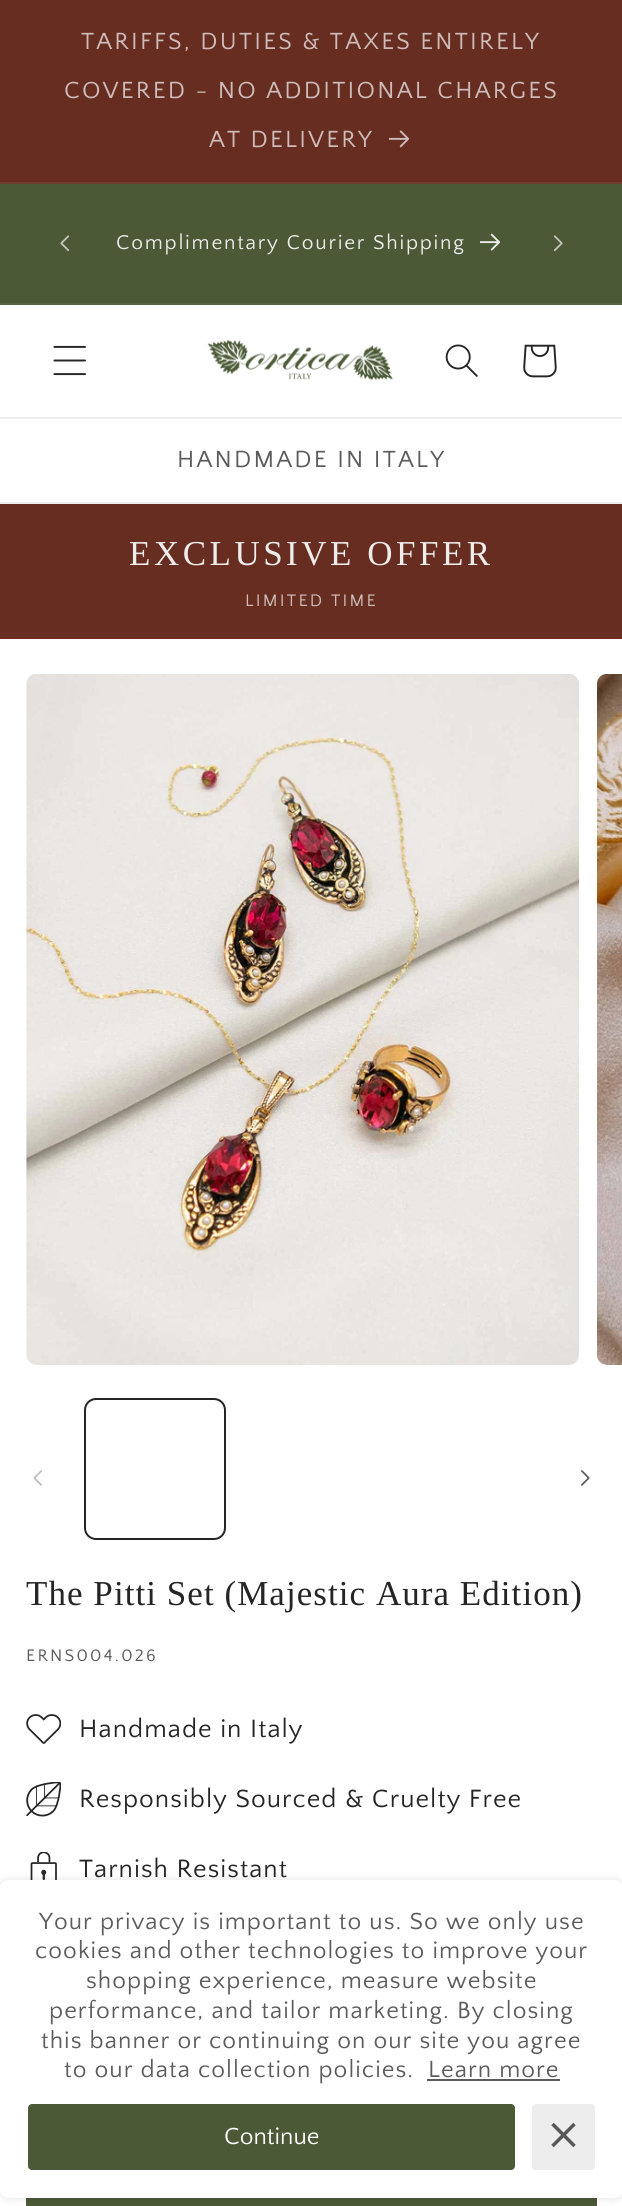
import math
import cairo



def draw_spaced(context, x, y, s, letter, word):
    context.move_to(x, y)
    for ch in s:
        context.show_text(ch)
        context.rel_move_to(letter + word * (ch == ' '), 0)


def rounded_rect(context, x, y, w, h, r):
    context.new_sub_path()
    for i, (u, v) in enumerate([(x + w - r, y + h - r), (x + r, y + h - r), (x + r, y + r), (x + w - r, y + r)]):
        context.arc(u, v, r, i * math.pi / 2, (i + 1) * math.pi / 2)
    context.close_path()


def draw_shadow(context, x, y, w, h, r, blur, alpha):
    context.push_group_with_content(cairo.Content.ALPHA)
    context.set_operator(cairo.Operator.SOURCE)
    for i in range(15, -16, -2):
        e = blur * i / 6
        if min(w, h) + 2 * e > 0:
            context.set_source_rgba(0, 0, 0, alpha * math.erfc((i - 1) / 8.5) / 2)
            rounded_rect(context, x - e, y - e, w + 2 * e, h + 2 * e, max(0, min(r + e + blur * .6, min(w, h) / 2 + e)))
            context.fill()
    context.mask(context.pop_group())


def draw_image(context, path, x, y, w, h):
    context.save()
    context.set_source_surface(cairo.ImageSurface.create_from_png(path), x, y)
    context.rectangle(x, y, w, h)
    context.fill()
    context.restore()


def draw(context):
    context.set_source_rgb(1, 1, 1)
    context.paint()
    context.set_source_rgb(103 / 255, 45 / 255, 33 / 255)
    context.rectangle(0, 0, 622, 182)
    context.fill()
    context.set_source_rgb(114 / 255, 60 / 255, 49 / 255)
    context.rectangle(0, 182, 622, 2)
    context.fill()
    draw_image(context, "images/1.png", 389, 130, 20, 18)
    context.set_source_rgb(75 / 255, 89 / 255, 54 / 255)
    context.rectangle(0, 184, 622, 119)
    context.fill()
    context.set_source_rgb(88 / 255, 101 / 255, 69 / 255)
    context.rectangle(0, 303, 622, 2)
    context.fill()
    draw_image(context, "images/2.png", 60, 235, 10, 17)
    draw_image(context, "images/3.png", 480, 233, 21, 18)
    draw_image(context, "images/4.png", 553, 235, 10, 17)
    context.set_source_rgb(238 / 255, 238 / 255, 238 / 255)
    context.rectangle(0, 417, 622, 2)
    context.fill()
    draw_image(context, "images/5.png", 53, 345, 33, 31)
    draw_image(context, "images/6.png", 207, 339, 186, 42)
    draw_image(context, "images/7.png", 445, 344, 33, 33)
    draw_image(context, "images/8.png", 523, 344, 34, 34)
    context.rectangle(0, 502, 622, 2)
    context.fill()
    context.set_source_rgb(103 / 255, 45 / 255, 33 / 255)
    context.rectangle(0, 504, 622, 135)
    context.fill()
    draw_image(context, "images/9.png", 26, 674, 554, 691)
    draw_image(context, "images/10.png", 597, 674, 25, 691)
    draw_image(context, "images/11.png", 33, 1470, 9, 16)
    rounded_rect(context, 85, 1399, 140, 140, 11)
    context.set_source_rgb(37 / 255, 37 / 255, 37 / 255)
    context.stroke()
    draw_image(context, "images/12.png", 581, 1470, 9, 16)
    draw_image(context, "images/13.png", 26, 1714, 35, 30)
    draw_image(context, "images/14.png", 26, 1782, 35, 35)
    draw_image(context, "images/15.png", 30, 1852, 27, 28)
    context.set_source_rgb(75 / 255, 89 / 255, 54 / 255)
    context.rectangle(26, 2198, 571, 8)
    context.fill()
    context.rectangle(27, 2136, 569, 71)
    context.stroke()
    context.set_source_rgb(1, 1, 1)
    context.rectangle(26, 2135, 571, 63)
    context.fill()
    context.save()
    context.set_fill_rule(cairo.FillRule.EVEN_ODD)
    context.new_path()
    context.move_to(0, 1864)
    context.line_to(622, 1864)
    context.line_to(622, 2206)
    context.line_to(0, 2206)
    context.close_path()
    context.move_to(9, 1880)
    context.line_to(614, 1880)
    context.curve_to(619, 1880, 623, 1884, 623, 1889)
    context.line_to(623, 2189)
    context.curve_to(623, 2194, 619, 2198, 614, 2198)
    context.line_to(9, 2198)
    context.curve_to(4, 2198, 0, 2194, 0, 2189)
    context.line_to(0, 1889)
    context.curve_to(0, 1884, 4, 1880, 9, 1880)
    context.close_path()
    context.clip()
    context.set_source_rgb(0, 0, 0)
    draw_shadow(context, 0, 1880, 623, 318, 9, 5, 0.12)
    context.restore()
    context.set_source_rgb(92 / 255, 92 / 255, 92 / 255)
    context.rectangle(427, 2079, 133, 2)
    context.fill()
    context.set_source_rgb(75 / 255, 89 / 255, 54 / 255)
    rounded_rect(context, 28, 2104, 487, 66, 4)
    context.fill()
    context.set_source_rgb(237 / 255, 237 / 255, 237 / 255)
    rounded_rect(context, 532, 2104, 63, 66, 4)
    context.fill()
    draw_image(context, "images/16.png", 551, 2122, 25, 26)
    context.select_font_face("Quattrocento Sans")
    context.set_font_size(24.5)
    context.set_source_rgb(205 / 255, 188 / 255, 185 / 255)
    draw_spaced(context, 81, 49, "TARIFFS, DUTIES & TAXES ENTIRELY", 2.25, 0)
    draw_spaced(context, 64, 98, "COVERED - NO ADDITIONAL CHARGES", 2.25, 0)
    draw_spaced(context, 209, 147, "AT DELIVERY", 2.25, 0)
    context.set_font_size(21)
    context.set_source_rgb(239 / 255, 236 / 255, 236 / 255)
    draw_spaced(context, 116, 249, "Complimentary Courier Shipping", 1.75, 0)
    context.set_font_size(24.5)
    context.set_source_rgb(92 / 255, 92 / 255, 92 / 255)
    draw_spaced(context, 177, 467, "HANDMADE IN ITALY", 2.25, 0)
    context.select_font_face("Liberation Serif")
    context.set_font_size(35)
    context.set_source_rgb(239 / 255, 236 / 255, 236 / 255)
    draw_spaced(context, 129, 565, "EXCLUSIVE OFFER", 3.5, 0)
    context.select_font_face("Quattrocento Sans")
    context.set_font_size(17.5)
    context.set_source_rgb(205 / 255, 188 / 255, 185 / 255)
    draw_spaced(context, 245, 606, "LIMITED TIME", 2.25, 0)
    context.select_font_face("Liberation Serif")
    context.set_font_size(35)
    context.set_source_rgb(37 / 255, 37 / 255, 37 / 255)
    draw_spaced(context, 26, 1605, "The Pitti Set (Majestic Aura Edition)", 1.05, 0)
    context.select_font_face("Quattrocento Sans")
    context.set_font_size(17.5)
    context.set_source_rgb(92 / 255, 92 / 255, 92 / 255)
    draw_spaced(context, 26, 1661, "ERNS004.026", 2.25, 0)
    context.set_font_size(26.25)
    context.set_source_rgb(37 / 255, 37 / 255, 37 / 255)
    draw_spaced(context, 79, 1737, "Handmade in Italy", 1.05, 0)
    draw_spaced(context, 79, 1807, "Responsibly Sourced & Cruelty Free", 1.05, 0)
    draw_spaced(context, 79, 1877, "Tarnish Resistant", 1.05, 0)
    context.set_font_size(24.5)
    context.set_source_rgb(92 / 255, 92 / 255, 92 / 255)
    draw_spaced(context, 39, 1929, "Your privacy is important to us. So we only use", 1.05, 0)
    draw_spaced(context, 35, 1958, "cookies and other technologies to improve your", 1.05, 0)
    draw_spaced(context, 86, 1988, "shopping experience, measure website", 1.05, 0)
    draw_spaced(context, 49, 2018, "performance, and tailor marketing. By closing", 1.05, 0)
    draw_spaced(context, 41, 2048, "this banner or continuing on our site you agree", 1.05, 0)
    draw_spaced(context, 64, 2077, "to our data collection policies.", 1.05, 0)
    draw_spaced(context, 428, 2077, "Learn more", 1.05, 0)
    context.set_source_rgb(1, 1, 1)
    context.move_to(224, 2144)
    context.show_text("Continue")


surface = cairo.ImageSurface(cairo.Format.RGB24, 622, 2206)
context = cairo.Context(surface)
options = cairo.FontOptions()
options.set_hint_metrics(cairo.HintMetrics.OFF)
options.set_hint_style(cairo.HintStyle.NONE)
context.set_font_options(options)
context.set_miter_limit(4)
draw(context)
surface.write_to_png("out.png")
